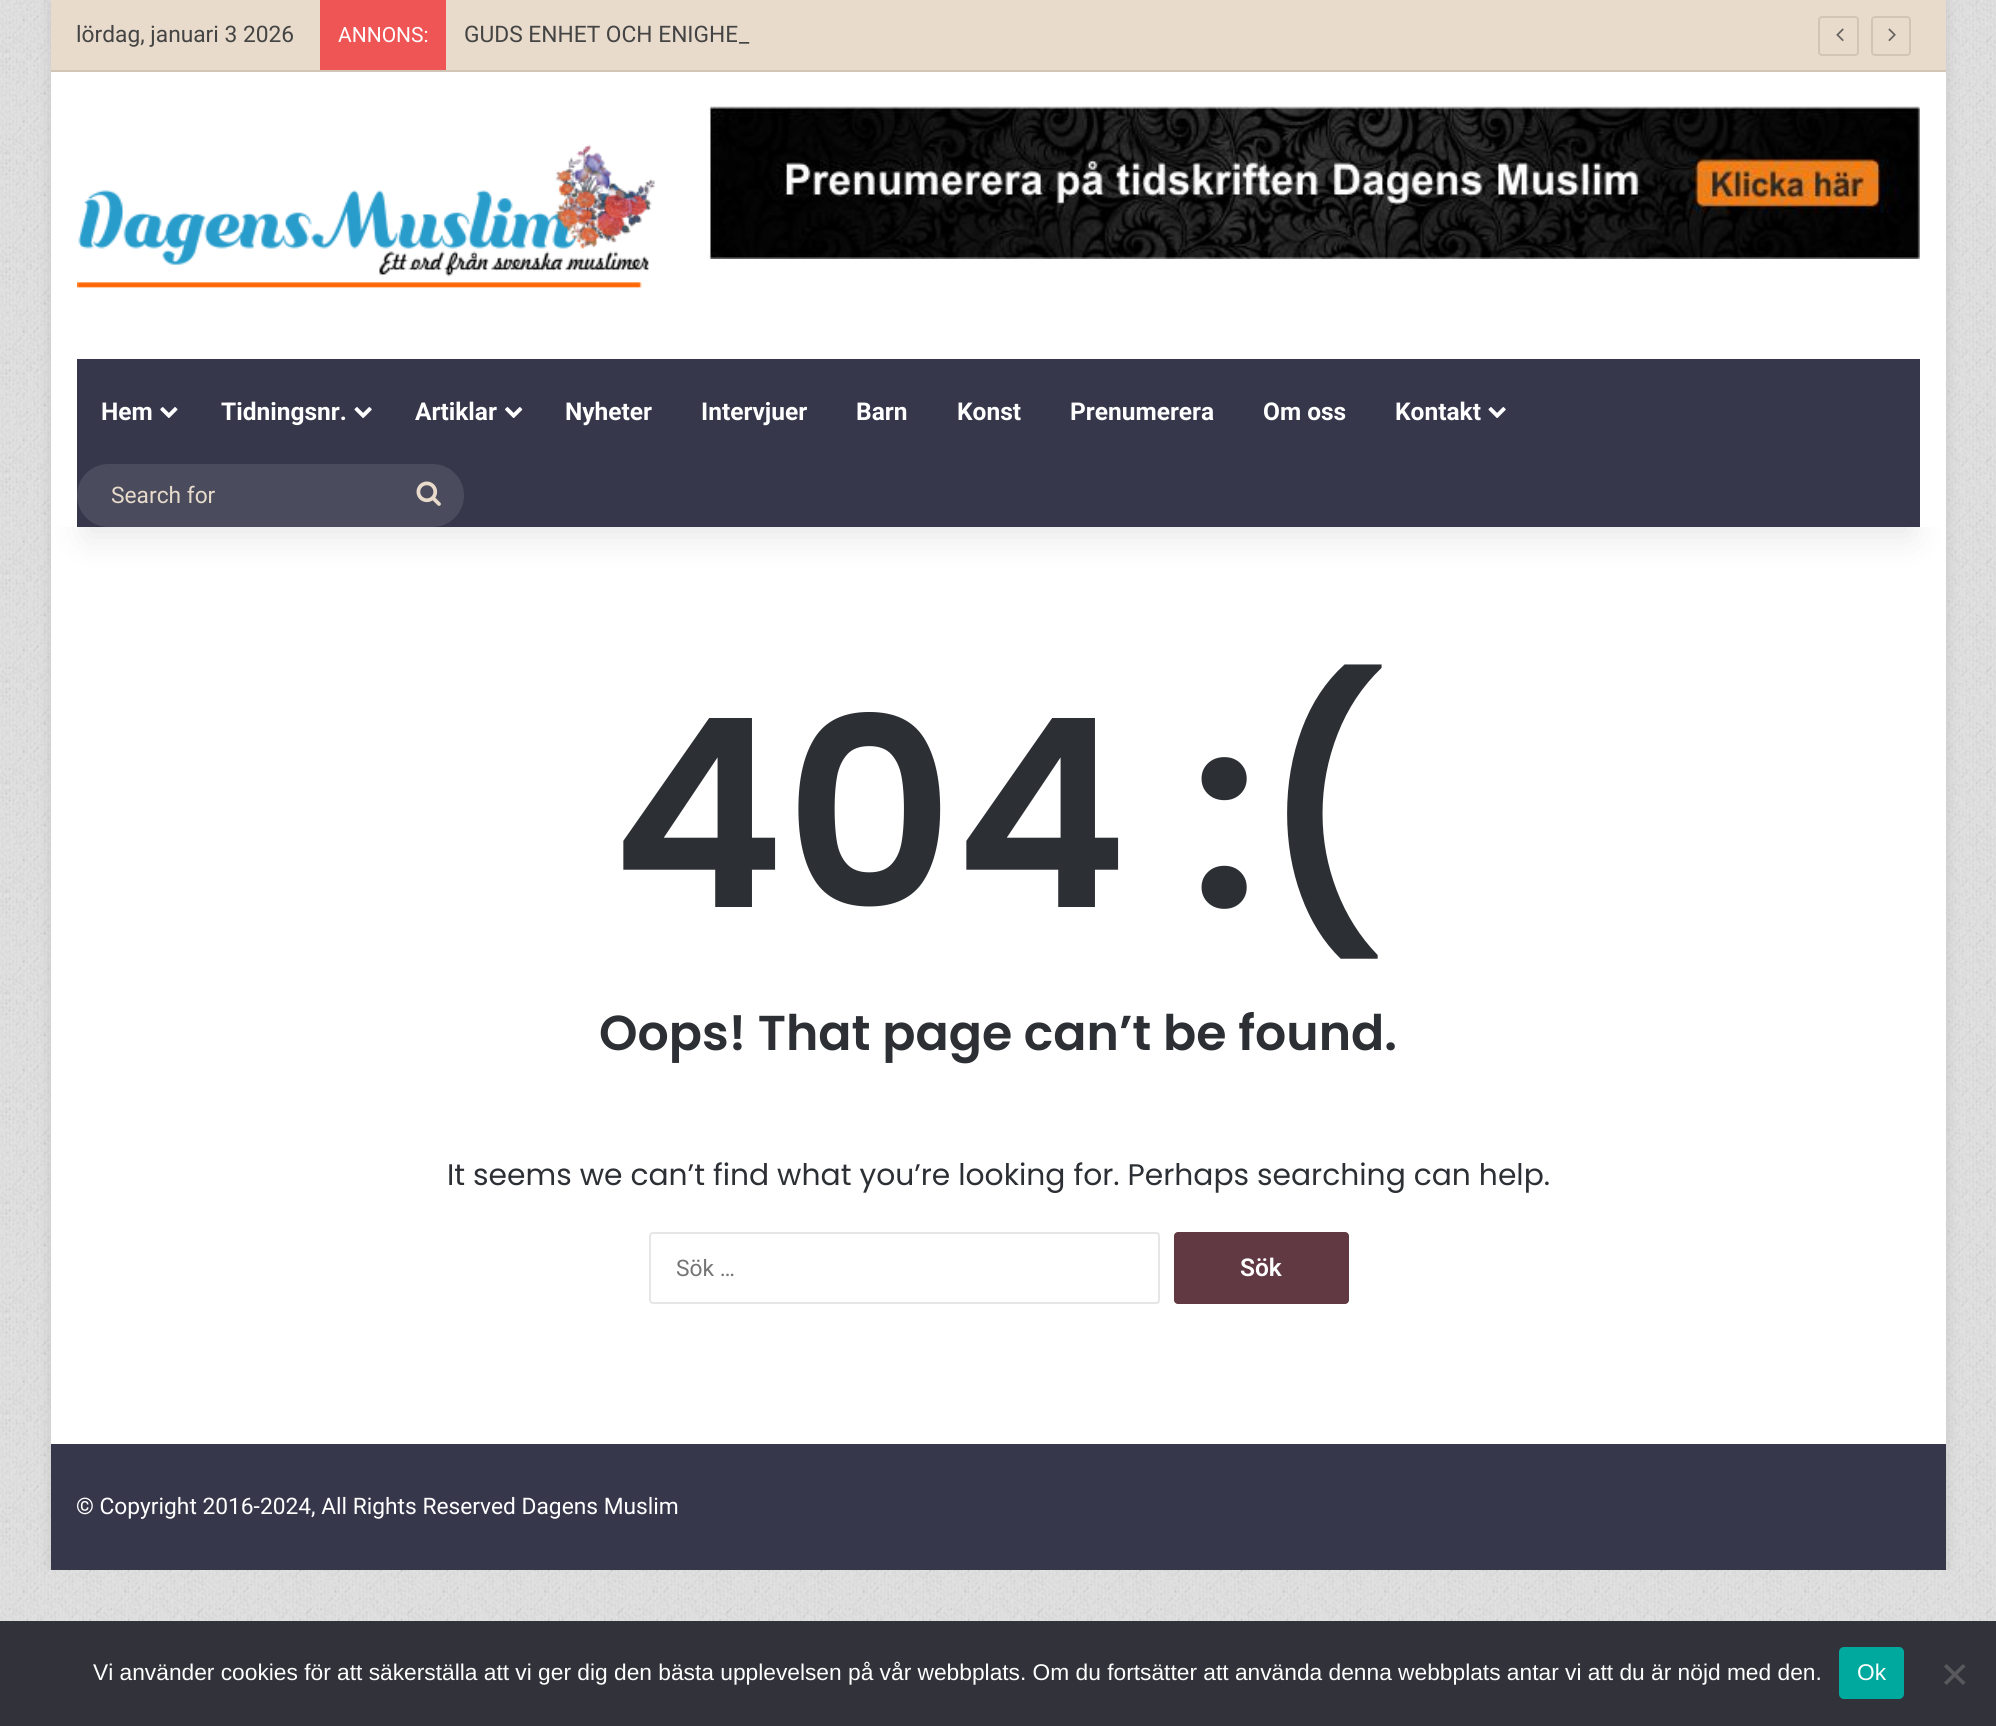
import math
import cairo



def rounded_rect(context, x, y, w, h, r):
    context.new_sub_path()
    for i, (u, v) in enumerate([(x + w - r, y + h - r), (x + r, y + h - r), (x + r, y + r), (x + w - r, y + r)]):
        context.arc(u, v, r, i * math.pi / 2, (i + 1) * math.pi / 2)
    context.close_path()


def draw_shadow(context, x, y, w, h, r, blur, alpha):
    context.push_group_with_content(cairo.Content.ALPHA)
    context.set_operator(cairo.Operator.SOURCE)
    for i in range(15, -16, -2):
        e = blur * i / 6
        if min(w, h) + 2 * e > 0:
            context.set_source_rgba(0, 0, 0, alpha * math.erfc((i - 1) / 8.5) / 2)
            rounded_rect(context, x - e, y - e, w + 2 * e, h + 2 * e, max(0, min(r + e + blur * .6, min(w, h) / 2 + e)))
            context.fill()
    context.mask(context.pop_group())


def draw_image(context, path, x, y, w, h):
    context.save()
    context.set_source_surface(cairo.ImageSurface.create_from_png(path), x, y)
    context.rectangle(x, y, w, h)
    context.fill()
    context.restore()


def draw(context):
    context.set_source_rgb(226 / 255, 226 / 255, 226 / 255)
    context.paint()
    draw_image(context, "images/1.png", 0, 0, 1996, 1621)
    context.save()
    context.rectangle(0, 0, 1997, 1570)
    context.clip()
    context.set_source_rgb(171 / 255, 171 / 255, 171 / 255)
    draw_shadow(context, 51, 2, 1895, 1570, 0, 6, 0.5)
    context.restore()
    context.set_source_rgb(1, 1, 1)
    context.rectangle(51, 527, 1895, 917)
    context.fill()
    context.set_source_rgb(0, 0, 0)
    draw_shadow(context, 86, 79, 1825, 457, 0, 17.5, 0.1)
    context.set_source_rgb(1, 1, 1)
    context.rectangle(51, 72, 1895, 455)
    context.fill()
    context.set_source_rgb(232 / 255, 219 / 255, 203 / 255)
    context.rectangle(51, 0, 1895, 70)
    context.fill()
    context.set_source_rgb(209 / 255, 197 / 255, 183 / 255)
    context.rectangle(51, 70, 1895, 2)
    context.fill()
    context.set_source_rgb(240 / 255, 85 / 255, 85 / 255)
    context.rectangle(320, 0, 126, 70)
    context.fill()
    rounded_rect(context, 1819, 17, 39, 38, 3)
    context.set_source_rgb(209 / 255, 197 / 255, 183 / 255)
    context.stroke()
    draw_image(context, "images/2.png", 1836, 28, 8, 14)
    rounded_rect(context, 1872, 17, 38, 38, 3)
    context.stroke()
    draw_image(context, "images/3.png", 1888, 28, 8, 14)
    draw_image(context, "images/4.png", 77, 144, 578, 145)
    draw_image(context, "images/5.png", 708, 106, 1212, 153)
    context.set_source_rgb(54 / 255, 55 / 255, 75 / 255)
    context.rectangle(77, 359, 1843, 168)
    context.fill()
    draw_image(context, "images/6.png", 160, 407, 18, 11)
    draw_image(context, "images/7.png", 354, 407, 18, 11)
    draw_image(context, "images/8.png", 505, 407, 18, 11)
    draw_image(context, "images/7.png", 1488, 407, 18, 11)
    context.set_source_rgb(74 / 255, 75 / 255, 93 / 255)
    rounded_rect(context, 77, 464, 387, 63, 31.5)
    context.fill()
    draw_image(context, "images/9.png", 416, 481, 25, 25)
    rounded_rect(context, 650, 1233, 509, 70, 3)
    context.set_source_rgb(230 / 255, 230 / 255, 230 / 255)
    context.stroke()
    context.set_source_rgb(97 / 255, 57 / 255, 66 / 255)
    rounded_rect(context, 1174, 1232, 175, 72, 4)
    context.fill()
    context.set_source_rgb(54 / 255, 55 / 255, 75 / 255)
    context.rectangle(51, 1444, 1895, 126)
    context.fill()
    context.set_source_rgb(50 / 255, 50 / 255, 58 / 255)
    context.rectangle(0, 1621, 1996, 105)
    context.fill()
    context.set_source_rgb(0, 169 / 255, 157 / 255)
    rounded_rect(context, 1839, 1647, 65, 52, 5)
    context.fill()
    context.set_source_rgb(89 / 255, 89 / 255, 93 / 255)
    context.new_path()
    context.move_to(1963, 1664)
    context.line_to(1965.5, 1666.5)
    context.line_to(1946.5, 1685)
    context.line_to(1944, 1682.5)
    context.close_path()
    context.fill()
    context.new_path()
    context.move_to(1944, 1666.5)
    context.line_to(1946.5, 1664)
    context.line_to(1965.5, 1682.5)
    context.line_to(1963, 1685)
    context.close_path()
    context.fill()
    context.select_font_face("Roboto")
    context.set_font_size(22.75)
    context.set_source_rgb(68 / 255, 68 / 255, 68 / 255)
    context.move_to(76, 42)
    context.show_text("lördag, januari 3 2026")
    context.set_font_size(21)
    context.set_source_rgb(1, 1, 1)
    context.move_to(338, 42)
    context.show_text("ANNONS:")
    context.set_font_size(22.75)
    context.set_source_rgb(68 / 255, 68 / 255, 68 / 255)
    context.move_to(464, 42)
    context.show_text("GUDS ENHET OCH ENIGHE")
    context.set_source_rgb(232 / 255, 219 / 255, 203 / 255)
    context.rectangle(737, 40, 1, 2)
    context.fill()
    context.set_source_rgb(68 / 255, 68 / 255, 68 / 255)
    context.move_to(739, 42)
    context.show_text("_")
    context.select_font_face("Roboto", cairo.FontSlant.NORMAL, cairo.FontWeight.BOLD)
    context.set_font_size(24.5)
    context.set_source_rgb(1, 1, 1)
    context.move_to(101, 420)
    context.show_text("Hem")
    context.move_to(221, 420)
    context.show_text("Tidningsnr.")
    context.move_to(415, 420)
    context.show_text("Artiklar")
    context.move_to(565, 420)
    context.show_text("Nyheter")
    context.move_to(701, 420)
    context.show_text("Intervjuer")
    context.move_to(856, 420)
    context.show_text("Barn")
    context.move_to(957, 420)
    context.show_text("Konst")
    context.move_to(1070, 420)
    context.show_text("Prenumerera")
    context.move_to(1263, 420)
    context.show_text("Om oss")
    context.move_to(1395, 420)
    context.show_text("Kontakt")
    context.select_font_face("Roboto")
    context.set_font_size(22.75)
    context.set_source_rgb(232 / 255, 219 / 255, 203 / 255)
    context.move_to(111, 503)
    context.show_text("Search for")
    context.select_font_face("Poppins SemiBold")
    context.set_font_size(262.5)
    context.set_source_rgb(44 / 255, 47 / 255, 52 / 255)
    context.move_to(611, 907)
    context.show_text("404 :(")
    context.set_font_size(49)
    context.move_to(599, 1050)
    context.show_text("Oops! That page can’t be found.")
    context.select_font_face("Poppins")
    context.set_font_size(29.75)
    context.move_to(447, 1185)
    context.show_text("It seems we can’t find what you’re looking for. Perhaps searching can help.")
    context.select_font_face("Roboto")
    context.set_font_size(22.75)
    context.set_source_rgb(117 / 255, 117 / 255, 117 / 255)
    context.move_to(676, 1276)
    context.show_text("Sök …")
    context.select_font_face("Roboto SemiBold")
    context.set_font_size(24.5)
    context.set_source_rgb(1, 1, 1)
    context.move_to(1240, 1276)
    context.show_text("Sök")
    context.select_font_face("Roboto")
    context.set_font_size(22.75)
    context.move_to(76, 1514)
    context.show_text("© Copyright 2016-2024, All Rights Reserved Dagens Muslim")
    context.select_font_face("Liberation Sans")
    context.move_to(93, 1680)
    context.show_text("Vi använder cookies för att säkerställa att vi ger dig den bästa upplevelsen på vår webbplats. Om du fortsätter att använda denna webbplats antar vi att du är nöjd med den.")
    context.move_to(1857, 1680)
    context.show_text("Ok")


surface = cairo.ImageSurface(cairo.Format.RGB24, 1996, 1726)
context = cairo.Context(surface)
options = cairo.FontOptions()
options.set_hint_metrics(cairo.HintMetrics.OFF)
options.set_hint_style(cairo.HintStyle.NONE)
context.set_font_options(options)
context.set_miter_limit(4)
draw(context)
surface.write_to_png("out.png")
